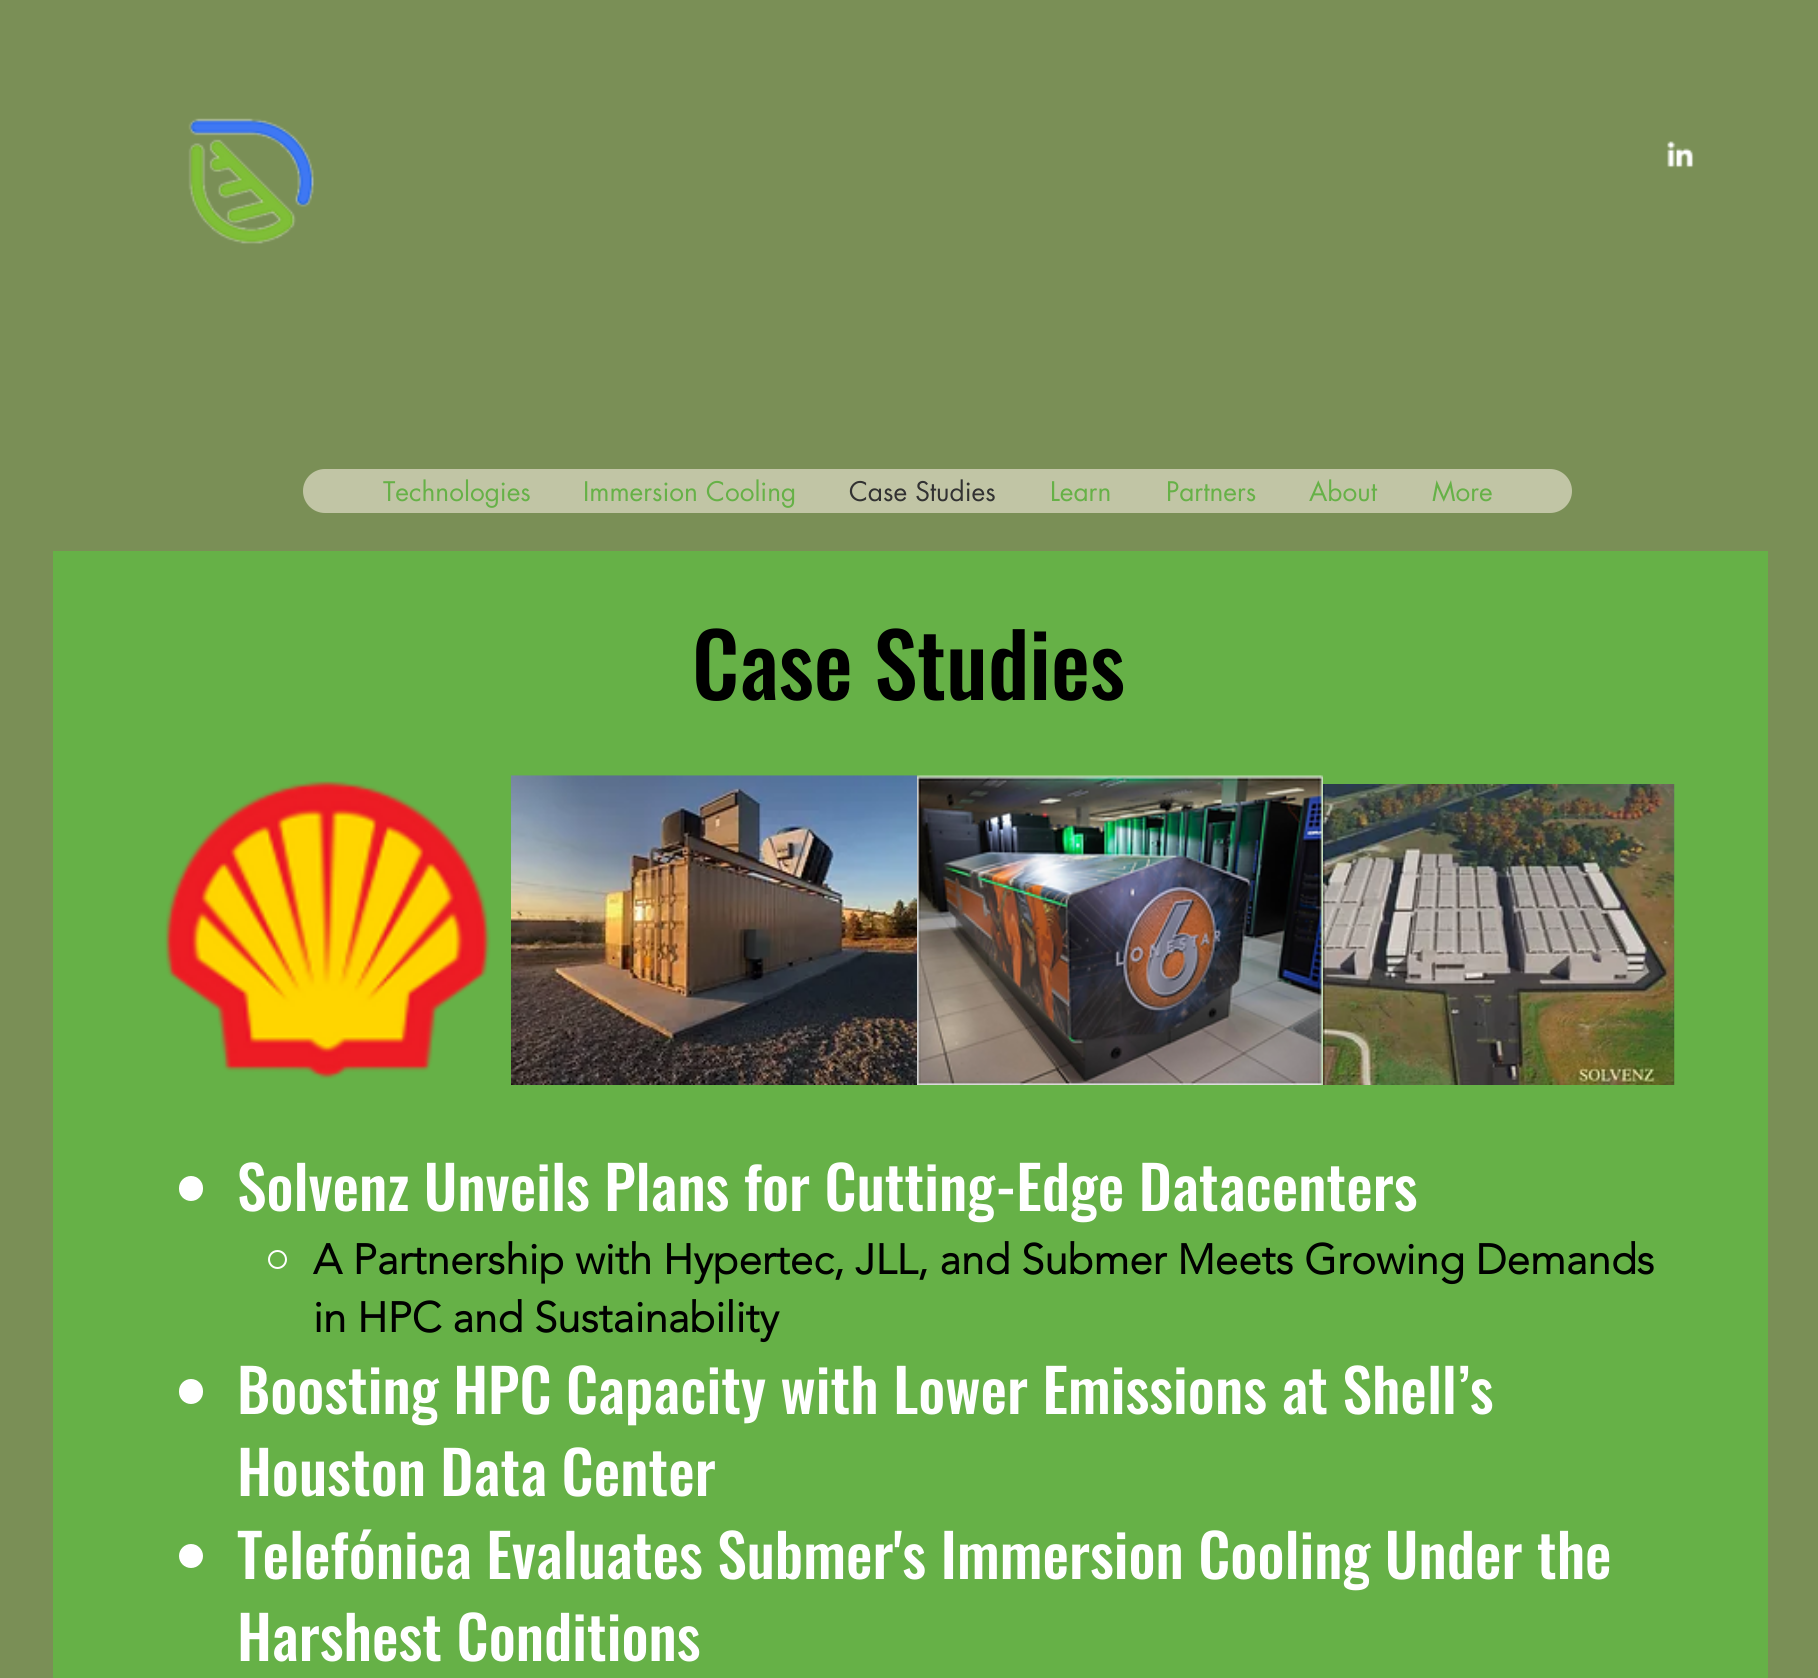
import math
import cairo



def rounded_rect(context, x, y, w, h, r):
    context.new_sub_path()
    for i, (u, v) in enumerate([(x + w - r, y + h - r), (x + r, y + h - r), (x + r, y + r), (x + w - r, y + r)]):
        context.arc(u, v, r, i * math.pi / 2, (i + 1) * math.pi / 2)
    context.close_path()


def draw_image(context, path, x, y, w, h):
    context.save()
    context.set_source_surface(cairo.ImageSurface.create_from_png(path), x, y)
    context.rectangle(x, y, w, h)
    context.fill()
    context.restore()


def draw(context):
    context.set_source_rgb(122 / 255, 143 / 255, 86 / 255)
    context.paint()
    draw_image(context, "images/1.png", 188, 118, 126, 126)
    draw_image(context, "images/2.png", 1667, 141, 27, 27)
    context.set_source_rgb(193 / 255, 197 / 255, 165 / 255)
    rounded_rect(context, 303, 469, 1269, 44, 22)
    context.fill()
    context.set_source_rgb(102 / 255, 177 / 255, 71 / 255)
    context.rectangle(53, 551, 1715, 1127)
    context.fill()
    draw_image(context, "images/3.png", 164, 781, 327, 298)
    draw_image(context, "images/4.png", 511, 775, 406, 310)
    draw_image(context, "images/5.png", 917, 775, 406, 310)
    draw_image(context, "images/6.png", 1323, 784, 352, 301)
    context.set_source_rgb(1, 1, 1)
    rounded_rect(context, 179, 1176, 24, 25, 12)
    context.fill()
    context.arc(277.5, 1259.5, 8.5, 0, 2 * math.pi)
    context.stroke()
    rounded_rect(context, 179, 1379, 24, 25, 12)
    context.fill()
    context.arc(191, 1556, 12, 0, 2 * math.pi)
    context.fill()
    context.select_font_face("futura")
    context.set_font_size(26.25)
    context.set_source_rgb(102 / 255, 177 / 255, 71 / 255)
    context.move_to(383, 501)
    context.show_text("Technologies")
    context.move_to(583, 501)
    context.show_text("Immersion Cooling")
    context.set_source_rgb(50 / 255, 50 / 255, 50 / 255)
    context.move_to(849, 501)
    context.show_text("Case Studies")
    context.set_source_rgb(102 / 255, 177 / 255, 71 / 255)
    context.move_to(1050, 501)
    context.show_text("Learn")
    context.move_to(1166, 501)
    context.show_text("Partners")
    context.move_to(1309, 501)
    context.show_text("About")
    context.move_to(1432, 501)
    context.show_text("More")
    context.select_font_face("Oswald Medium")
    context.set_font_size(87.5)
    context.set_source_rgb(0, 0, 0)
    context.move_to(692, 700)
    context.show_text("Case Studies")
    context.set_font_size(59.5)
    context.set_source_rgb(1, 1, 1)
    context.move_to(237, 1211)
    context.show_text("Solvenz Unveils Plans for Cutting-Edge Datacenters")
    context.select_font_face("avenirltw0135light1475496", cairo.FontSlant.NORMAL, cairo.FontWeight.BOLD)
    context.set_font_size(42)
    context.set_source_rgb(0, 0, 0)
    context.move_to(313, 1274)
    context.show_text("A Partnership with Hypertec, JLL, and Submer Meets Growing Demands")
    context.move_to(313, 1332)
    context.show_text("in HPC and Sustainability")
    context.select_font_face("Oswald Medium")
    context.set_font_size(59.5)
    context.set_source_rgb(1, 1, 1)
    context.move_to(237, 1414)
    context.show_text("Boosting HPC Capacity with Lower Emissions at Shell’s")
    context.move_to(237, 1496)
    context.show_text("Houston Data Center")
    context.move_to(237, 1579)
    context.show_text("Telefónica Evaluates Submer's Immersion Cooling Under the")
    context.move_to(237, 1661)
    context.show_text("Harshest Conditions")


surface = cairo.ImageSurface(cairo.Format.RGB24, 1818, 1678)
context = cairo.Context(surface)
options = cairo.FontOptions()
options.set_hint_metrics(cairo.HintMetrics.OFF)
options.set_hint_style(cairo.HintStyle.NONE)
context.set_font_options(options)
context.set_miter_limit(4)
draw(context)
surface.write_to_png("out.png")
